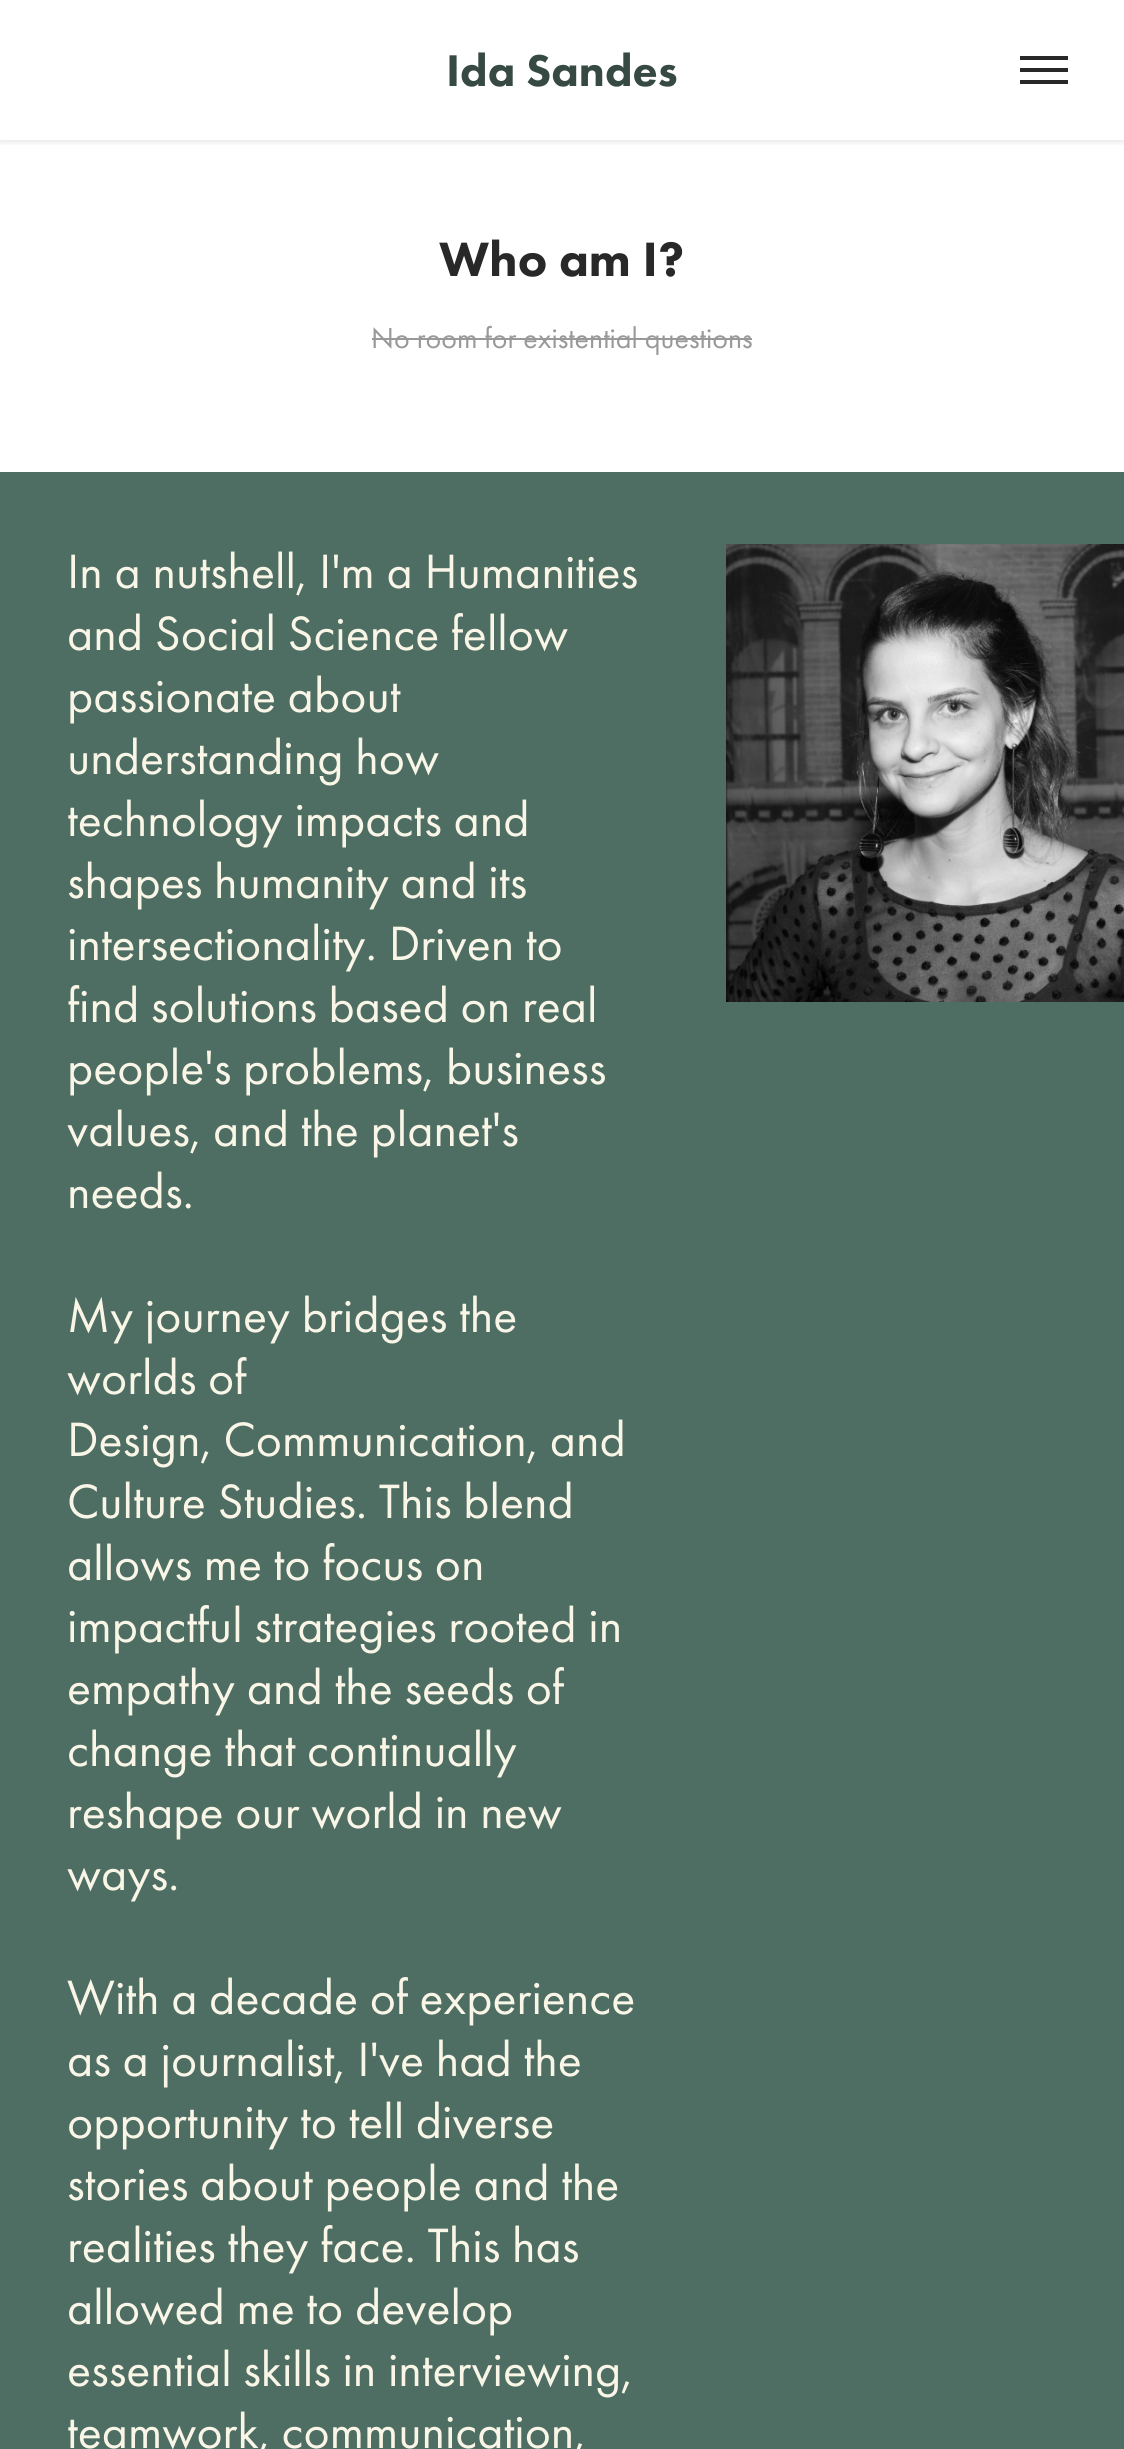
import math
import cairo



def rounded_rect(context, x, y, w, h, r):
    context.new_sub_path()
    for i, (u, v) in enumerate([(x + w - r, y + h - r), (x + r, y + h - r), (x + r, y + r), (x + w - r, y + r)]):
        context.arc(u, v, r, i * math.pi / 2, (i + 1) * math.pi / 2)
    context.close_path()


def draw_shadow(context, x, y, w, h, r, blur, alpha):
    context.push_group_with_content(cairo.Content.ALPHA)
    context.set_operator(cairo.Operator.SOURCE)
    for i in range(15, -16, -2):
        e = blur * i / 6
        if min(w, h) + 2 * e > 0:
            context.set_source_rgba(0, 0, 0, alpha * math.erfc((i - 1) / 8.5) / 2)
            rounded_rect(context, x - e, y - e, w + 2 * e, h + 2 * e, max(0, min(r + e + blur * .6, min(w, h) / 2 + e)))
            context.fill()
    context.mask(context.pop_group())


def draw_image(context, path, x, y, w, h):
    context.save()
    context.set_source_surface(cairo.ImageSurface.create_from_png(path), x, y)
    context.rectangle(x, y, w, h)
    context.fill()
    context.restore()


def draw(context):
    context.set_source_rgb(78 / 255, 109 / 255, 99 / 255)
    context.paint()
    context.set_source_rgb(1, 1, 1)
    context.rectangle(0, 0, 1124, 472)
    context.fill()
    context.save()
    context.rectangle(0, 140, 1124, 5)
    context.clip()
    context.set_source_rgb(0, 0, 0)
    draw_shadow(context, 0, 2, 1124, 140, 0, 3, 0.1)
    context.restore()
    context.set_source_rgb(40 / 255, 40 / 255, 40 / 255)
    context.rectangle(1020, 56, 48, 4)
    context.fill()
    context.rectangle(1020, 68, 48, 4)
    context.fill()
    context.rectangle(1020, 80, 48, 4)
    context.fill()
    context.set_source_rgb(153 / 255, 153 / 255, 153 / 255)
    context.rectangle(372, 338, 380, 2)
    context.fill()
    draw_image(context, "images/1.png", 726, 544, 398, 458)
    context.select_font_face("Futura PT Black")
    context.set_font_size(46)
    context.set_source_rgb(54 / 255, 73 / 255, 66 / 255)
    context.move_to(446, 86)
    context.show_text("Ida Sandes")
    context.set_font_size(50)
    context.set_source_rgb(40 / 255, 40 / 255, 40 / 255)
    context.move_to(439, 276)
    context.show_text("Who am I?")
    context.select_font_face("Futura PT")
    context.set_font_size(30)
    context.set_source_rgb(153 / 255, 153 / 255, 153 / 255)
    context.move_to(371, 348)
    context.show_text("No room for existential questions")
    context.set_font_size(50)
    context.set_source_rgb(249 / 255, 246 / 255, 231 / 255)
    context.move_to(67, 588)
    context.show_text("In a nutshell, I'm a Humanities")
    context.move_to(67, 650)
    context.show_text("and Social Science fellow")
    context.move_to(67, 712)
    context.show_text("passionate about")
    context.move_to(67, 774)
    context.show_text("understanding how")
    context.move_to(67, 836)
    context.show_text("technology impacts and")
    context.move_to(67, 898)
    context.show_text("shapes humanity and its")
    context.move_to(67, 960)
    context.show_text("intersectionality. Driven to")
    context.move_to(67, 1022)
    context.show_text("find solutions based on real")
    context.move_to(67, 1084)
    context.show_text("people's problems, business")
    context.move_to(67, 1146)
    context.show_text("values, and the planet's")
    context.move_to(67, 1208)
    context.show_text("needs.")
    context.move_to(67, 1332)
    context.show_text("My journey bridges the")
    context.move_to(67, 1394)
    context.show_text("worlds of")
    context.move_to(67, 1456)
    context.show_text("Design, Communication, and")
    context.move_to(67, 1518)
    context.show_text("Culture Studies. This blend")
    context.move_to(67, 1580)
    context.show_text("allows me to focus on")
    context.move_to(67, 1642)
    context.show_text("impactful strategies rooted in")
    context.move_to(67, 1704)
    context.show_text("empathy and the seeds of")
    context.move_to(67, 1766)
    context.show_text("change that continually")
    context.move_to(67, 1828)
    context.show_text("reshape our world in new")
    context.move_to(67, 1890)
    context.show_text("ways.")
    context.move_to(67, 2014)
    context.show_text("With a decade of experience")
    context.move_to(67, 2076)
    context.show_text("as a journalist, I've had the")
    context.move_to(67, 2138)
    context.show_text("opportunity to tell diverse")
    context.move_to(67, 2200)
    context.show_text("stories about people and the")
    context.move_to(67, 2262)
    context.show_text("realities they face. This has")
    context.move_to(67, 2324)
    context.show_text("allowed me to develop")
    context.move_to(67, 2386)
    context.show_text("essential skills in interviewing,")
    context.move_to(67, 2448)
    context.show_text("teamwork, communication,")


surface = cairo.ImageSurface(cairo.Format.RGB24, 1124, 2449)
context = cairo.Context(surface)
options = cairo.FontOptions()
options.set_hint_metrics(cairo.HintMetrics.OFF)
options.set_hint_style(cairo.HintStyle.NONE)
context.set_font_options(options)
context.set_miter_limit(4)
draw(context)
surface.write_to_png("out.png")
